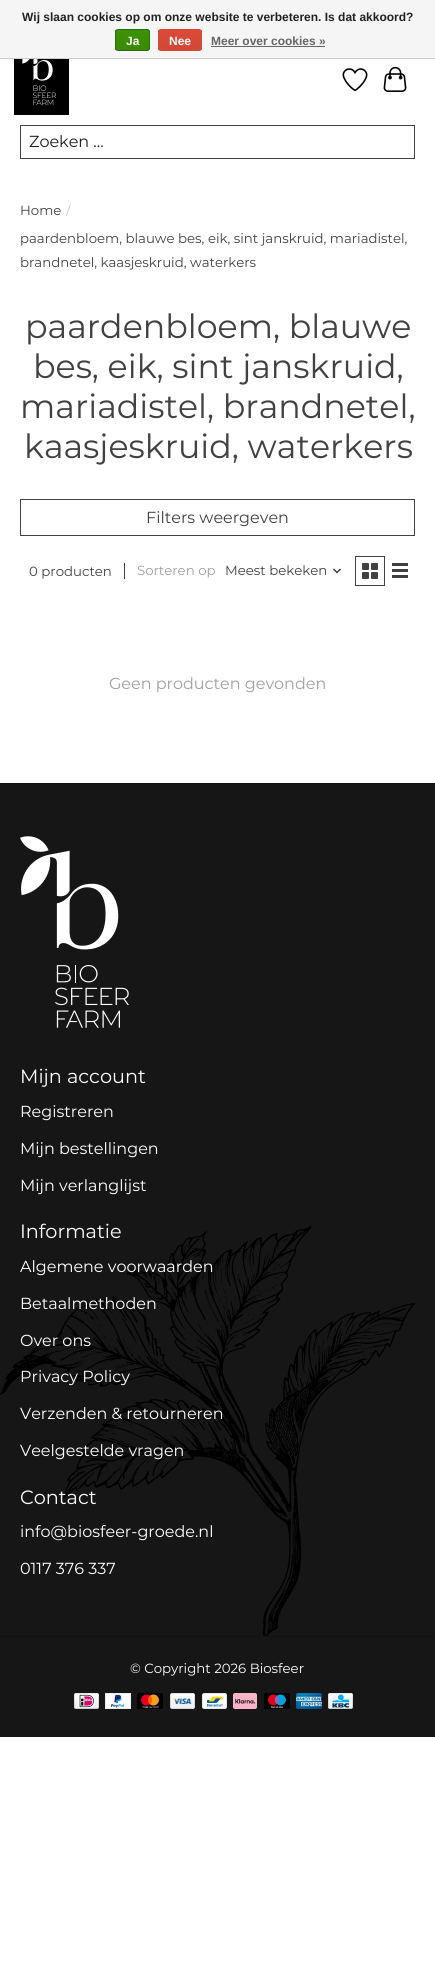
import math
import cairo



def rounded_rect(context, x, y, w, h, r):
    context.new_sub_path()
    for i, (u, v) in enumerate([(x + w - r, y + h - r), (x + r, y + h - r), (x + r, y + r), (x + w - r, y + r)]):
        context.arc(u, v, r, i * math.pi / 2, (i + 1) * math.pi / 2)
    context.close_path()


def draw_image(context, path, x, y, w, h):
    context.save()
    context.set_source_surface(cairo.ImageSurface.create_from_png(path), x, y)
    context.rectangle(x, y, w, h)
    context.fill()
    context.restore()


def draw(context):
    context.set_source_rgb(1, 1, 1)
    context.paint()
    context.set_source_rgb(245 / 255, 245 / 255, 245 / 255)
    context.rectangle(0, 0, 435, 58)
    context.fill()
    context.set_source_rgb(204 / 255, 204 / 255, 204 / 255)
    context.rectangle(0, 58, 435, 1)
    context.fill()
    context.save()
    rounded_rect(context, 115, 29, 35, 22, 3)
    context.clip()
    gradient = cairo.LinearGradient(133, 30, 133, 50)
    gradient.add_color_stop_rgba(0, 60 / 255, 147 / 255, 0, 1)
    gradient.add_color_stop_rgba(1, 57 / 255, 138 / 255, 0, 1)
    context.set_source(gradient)
    context.rectangle(115, 30, 35, 20)
    context.fill()
    context.restore()
    rounded_rect(context, 115.5, 29.5, 34, 21, 2.5)
    context.set_source_rgb(41 / 255, 105 / 255, 29 / 255)
    context.set_line_width(1)
    context.stroke()
    context.save()
    rounded_rect(context, 158, 29, 44, 22, 3)
    context.clip()
    gradient = cairo.LinearGradient(180, 30, 180, 50)
    gradient.add_color_stop_rgba(0, 220 / 255, 74 / 255, 56 / 255, 1)
    gradient.add_color_stop_rgba(1, 209 / 255, 72 / 255, 54 / 255, 1)
    context.set_source(gradient)
    context.rectangle(158, 30, 44, 20)
    context.fill()
    context.restore()
    rounded_rect(context, 158.5, 29.5, 43, 21, 2.5)
    context.set_source_rgb(209 / 255, 72 / 255, 54 / 255)
    context.stroke()
    context.set_source_rgb(102 / 255, 102 / 255, 102 / 255)
    context.rectangle(211, 46, 114, 1)
    context.fill()
    draw_image(context, "images/1.png", 14, 59, 55, 56)
    draw_image(context, "images/2.png", 342, 68, 26, 24)
    draw_image(context, "images/3.png", 383, 67, 24, 25)
    context.rectangle(20.5, 125.5, 394, 33)
    context.set_source_rgb(65 / 255, 65 / 255, 65 / 255)
    context.stroke()
    context.rectangle(20.5, 499.5, 394, 36)
    context.stroke()
    context.rectangle(124, 563, 1, 16)
    context.fill()
    draw_image(context, "images/4.png", 333, 568, 8, 6)
    context.rectangle(355.5, 556.5, 29, 29)
    context.stroke()
    draw_image(context, "images/5.png", 362, 563, 16, 16)
    context.rectangle(392, 563, 16, 3)
    context.fill()
    context.rectangle(392, 569, 16, 3)
    context.fill()
    context.rectangle(392, 575, 16, 3)
    context.fill()
    context.set_source_rgb(22 / 255, 22 / 255, 22 / 255)
    context.rectangle(0, 784, 435, 953)
    context.fill()
    context.set_source_rgb(18 / 255, 18 / 255, 18 / 255)
    context.rectangle(0, 783, 435, 1)
    context.fill()
    draw_image(context, "images/6.png", 20, 836, 109, 192)
    draw_image(context, "images/7.png", 0, 1226, 415, 410)
    context.rectangle(0, 1636, 435, 1)
    context.fill()
    draw_image(context, "images/8.png", 74, 1693, 25, 16)
    draw_image(context, "images/9.png", 105, 1693, 26, 16)
    draw_image(context, "images/10.png", 137, 1693, 26, 16)
    draw_image(context, "images/11.png", 170, 1693, 25, 16)
    draw_image(context, "images/12.png", 202, 1693, 25, 16)
    draw_image(context, "images/13.png", 233, 1693, 24, 16)
    draw_image(context, "images/14.png", 264, 1693, 26, 16)
    draw_image(context, "images/15.png", 296, 1693, 26, 16)
    draw_image(context, "images/16.png", 328, 1693, 25, 16)
    context.select_font_face("Liberation Sans", cairo.FontSlant.NORMAL, cairo.FontWeight.BOLD)
    context.set_font_size(12)
    context.set_source_rgb(34 / 255, 34 / 255, 34 / 255)
    context.move_to(22, 21)
    context.show_text("Wij slaan cookies op om onze website te verbeteren. Is dat akkoord?")
    context.set_source_rgb(1, 1, 1)
    context.move_to(126, 45)
    context.show_text("Ja")
    context.move_to(169, 45)
    context.show_text("Nee")
    context.set_source_rgb(102 / 255, 102 / 255, 102 / 255)
    context.move_to(211, 45)
    context.show_text("Meer over cookies »")
    context.select_font_face("Montserrat")
    context.set_font_size(16)
    context.set_source_rgb(28 / 255, 28 / 255, 33 / 255)
    context.move_to(29, 147)
    context.show_text("Zoeken ...")
    context.set_font_size(13.3)
    context.set_source_rgb(65 / 255, 65 / 255, 65 / 255)
    context.move_to(20, 215)
    context.show_text("Home")
    context.set_source_rgb(198 / 255, 198 / 255, 198 / 255)
    context.move_to(66, 215)
    context.show_text("/")
    context.set_source_rgb(65 / 255, 65 / 255, 65 / 255)
    context.move_to(20, 243)
    context.show_text("paardenbloem, blauwe bes, eik, sint janskruid, mariadistel,")
    context.move_to(20, 267)
    context.show_text("brandnetel, kaasjeskruid, waterkers")
    context.set_font_size(33.25)
    context.move_to(25, 338)
    context.show_text("paardenbloem, blauwe")
    context.move_to(33, 378)
    context.show_text("bes, eik, sint janskruid,")
    context.move_to(20, 418)
    context.show_text("mariadistel, brandnetel,")
    context.move_to(24, 458)
    context.show_text("kaasjeskruid, waterkers")
    context.set_font_size(16)
    context.move_to(146, 523)
    context.show_text("Filters weergeven")
    context.set_font_size(13.3)
    context.move_to(29, 576)
    context.show_text("0 producten")
    context.set_source_rgb(160 / 255, 160 / 255, 160 / 255)
    context.move_to(137, 575)
    context.show_text("Sorteren op")
    context.set_source_rgb(65 / 255, 65 / 255, 65 / 255)
    context.move_to(225, 575)
    context.show_text("Meest bekeken")
    context.set_font_size(16)
    context.set_source_rgb(160 / 255, 160 / 255, 160 / 255)
    context.move_to(109, 689)
    context.show_text("Geen producten gevonden")
    context.set_font_size(19.25)
    context.set_source_rgb(1, 1, 1)
    context.move_to(20, 1083)
    context.show_text("Mijn account")
    context.set_font_size(16)
    context.move_to(20, 1117)
    context.show_text("Registreren")
    context.move_to(20, 1154)
    context.show_text("Mijn bestellingen")
    context.move_to(20, 1191)
    context.show_text("Mijn verlanglijst")
    context.set_font_size(19.25)
    context.move_to(20, 1238)
    context.show_text("Informatie")
    context.set_font_size(16)
    context.move_to(20, 1272)
    context.show_text("Algemene voorwaarden")
    context.move_to(20, 1309)
    context.show_text("Betaalmethoden")
    context.move_to(20, 1346)
    context.show_text("Over ons")
    context.move_to(20, 1382)
    context.show_text("Privacy Policy")
    context.move_to(20, 1419)
    context.show_text("Verzenden & retourneren")
    context.move_to(20, 1456)
    context.show_text("Veelgestelde vragen")
    context.set_font_size(19.25)
    context.move_to(20, 1504)
    context.show_text("Contact")
    context.set_font_size(16)
    context.move_to(20, 1537)
    context.show_text("info@biosfeer-groede.nl")
    context.move_to(20, 1574)
    context.show_text("0117 376 337")
    context.set_font_size(13.3)
    context.move_to(130, 1673)
    context.show_text("© Copyright 2026 Biosfeer")


surface = cairo.ImageSurface(cairo.Format.RGB24, 435, 1962)
context = cairo.Context(surface)
options = cairo.FontOptions()
options.set_hint_metrics(cairo.HintMetrics.OFF)
options.set_hint_style(cairo.HintStyle.NONE)
context.set_font_options(options)
context.set_miter_limit(4)
draw(context)
surface.write_to_png("out.png")
